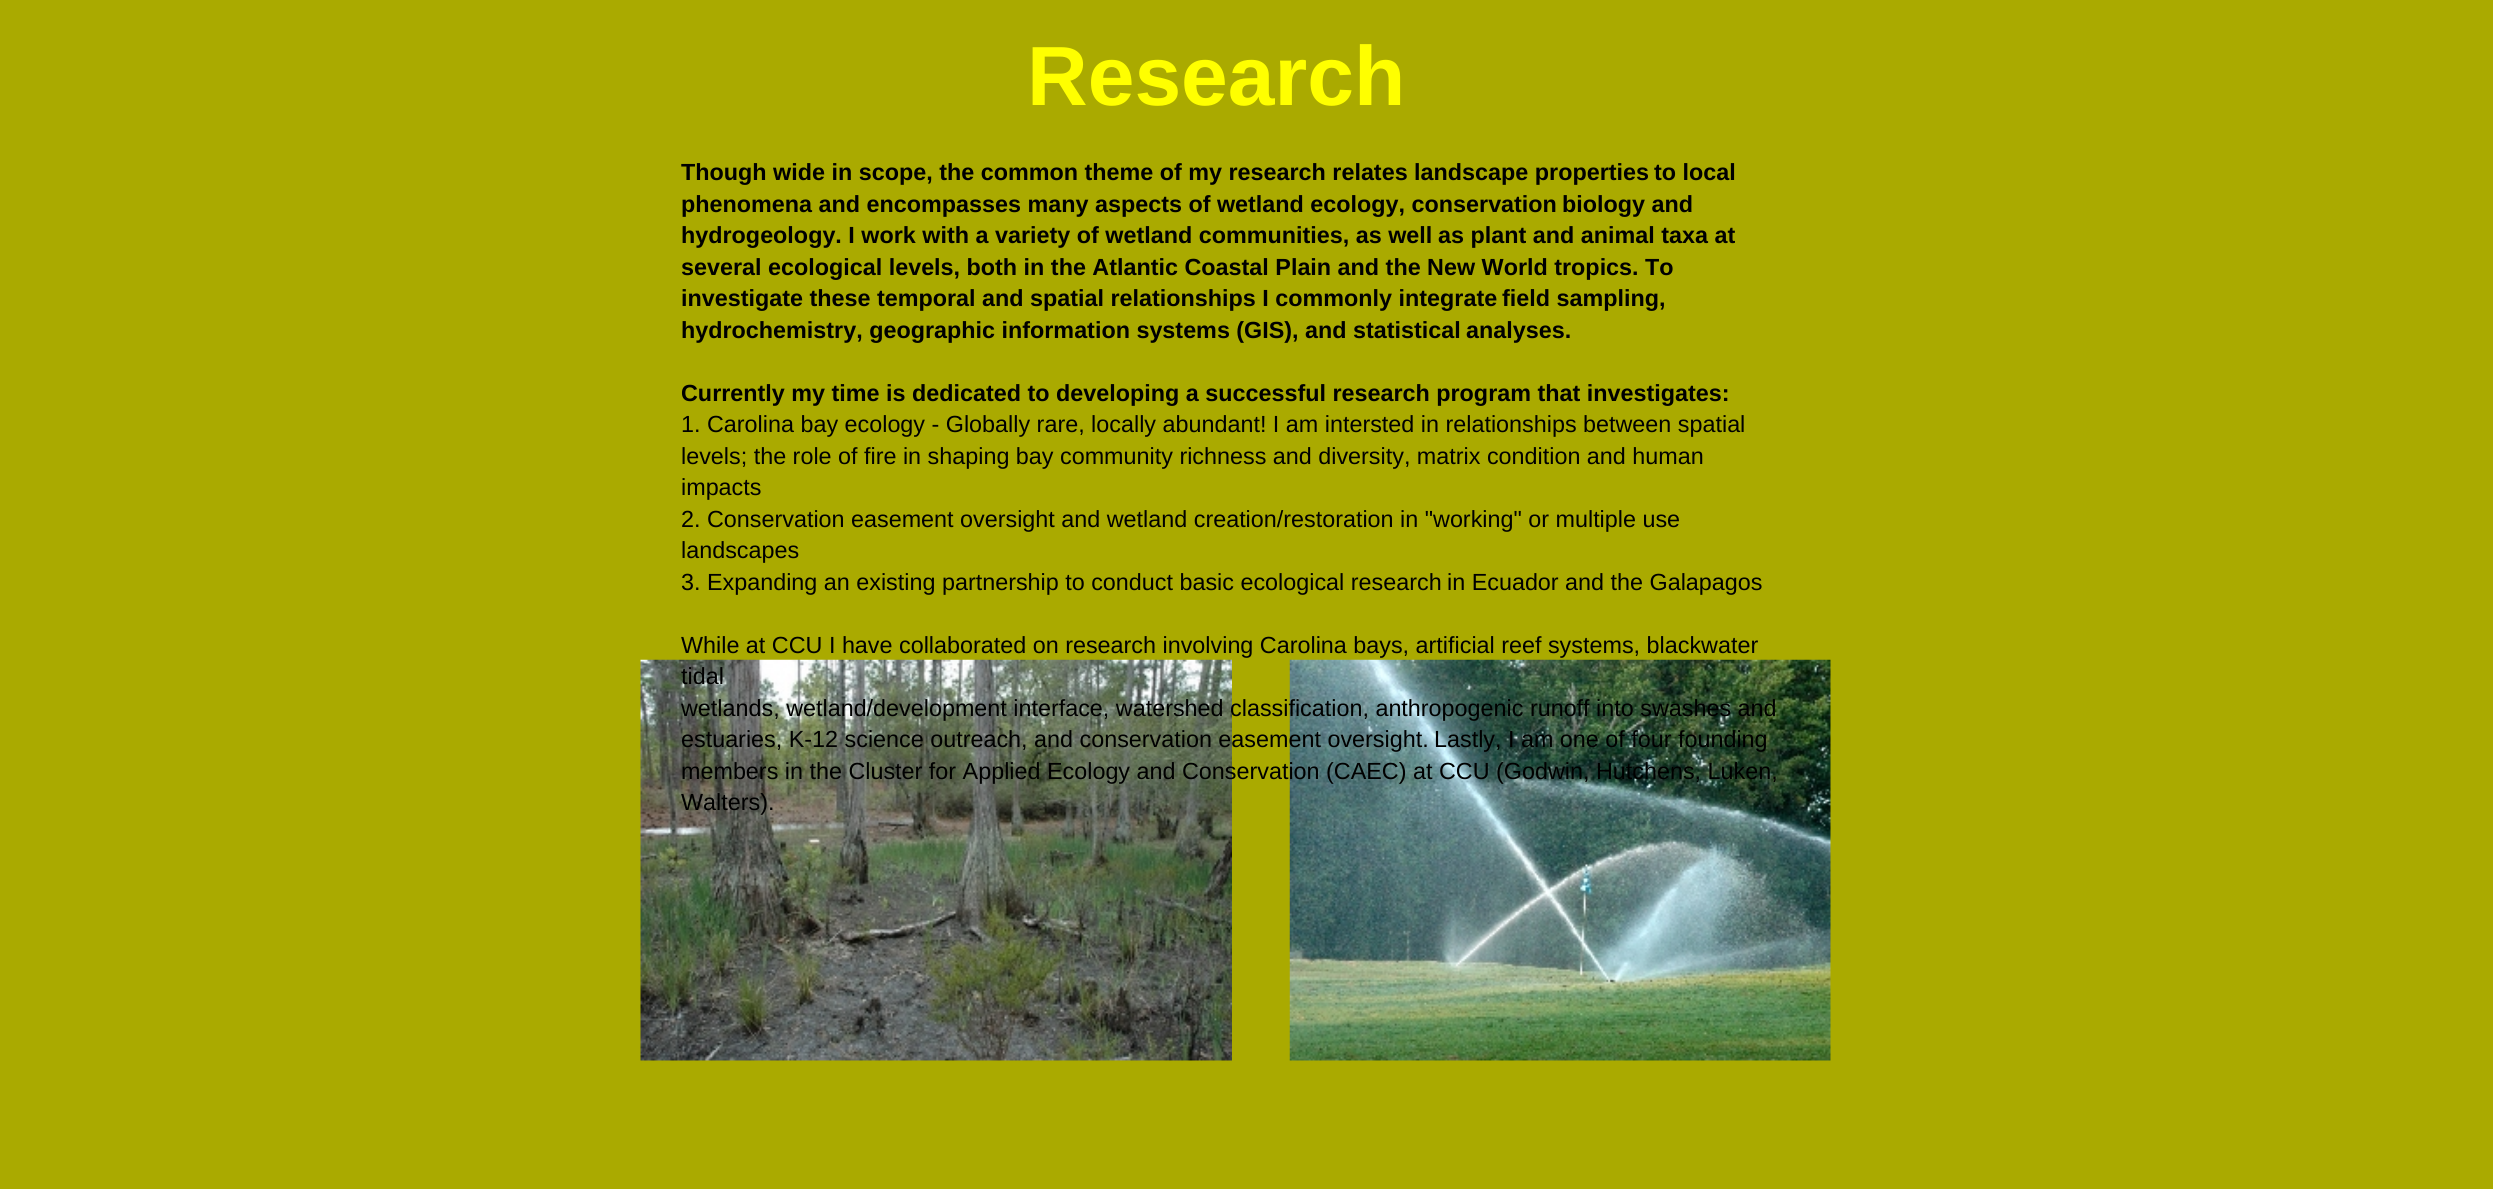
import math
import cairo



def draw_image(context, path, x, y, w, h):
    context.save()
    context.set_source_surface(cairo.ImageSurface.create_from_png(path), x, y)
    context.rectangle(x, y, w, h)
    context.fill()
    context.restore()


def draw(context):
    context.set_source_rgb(170 / 255, 170 / 255, 0)
    context.paint()
    draw_image(context, "images/1.png", 640, 659, 592, 402)
    draw_image(context, "images/2.png", 1289, 659, 542, 402)
    context.select_font_face("Liberation Sans", cairo.FontSlant.NORMAL, cairo.FontWeight.BOLD)
    context.set_font_size(84)
    context.set_source_rgb(1, 1, 0)
    context.move_to(1027, 105)
    context.show_text("Research")
    context.set_font_size(23.35)
    context.set_source_rgb(0, 0, 0)
    context.move_to(681, 180)
    context.show_text("Though wide in scope, the common theme of my research relates landscape properties")
    context.move_to(1654, 180)
    context.show_text("to local")
    context.move_to(681, 212)
    context.show_text("phenomena and encompasses many aspects of wetland ecology, conservation")
    context.move_to(1562, 212)
    context.show_text("biology and")
    context.move_to(681, 243)
    context.show_text("hydrogeology. I work with a variety of wetland communities, as well")
    context.move_to(1438, 243)
    context.show_text("as plant and animal taxa at")
    context.move_to(681, 275)
    context.show_text("several ecological levels, both in the Atlantic Coastal Plain and the New World tropics. To")
    context.move_to(681, 306)
    context.show_text("investigate these temporal and spatial relationships I commonly integrate")
    context.move_to(1502, 306)
    context.show_text("field sampling,")
    context.move_to(681, 338)
    context.show_text("hydrochemistry, geographic information systems (GIS), and statistical")
    context.move_to(1466, 338)
    context.show_text("analyses.")
    context.move_to(681, 401)
    context.show_text("Currently my time is dedicated to developing a successful research program that investigates:")
    context.select_font_face("Liberation Sans")
    context.move_to(681, 432)
    context.show_text("1. Carolina bay ecology - Globally rare, locally abundant! I am intersted in relationships between spatial")
    context.move_to(681, 464)
    context.show_text("levels; the role of fire in shaping bay community richness and diversity, matrix condition and human")
    context.move_to(681, 495)
    context.show_text("impacts")
    context.move_to(681, 527)
    context.show_text("2. Conservation easement oversight and wetland creation/restoration in \"working\" or multiple use")
    context.move_to(681, 558)
    context.show_text("landscapes")
    context.move_to(681, 590)
    context.show_text("3. Expanding an existing partnership to conduct basic ecological research")
    context.move_to(1447, 590)
    context.show_text("in Ecuador and the Galapagos")
    context.move_to(681, 653)
    context.show_text("While at CCU I have collaborated on research involving Carolina bays, artificial reef systems, blackwater")
    context.move_to(681, 684)
    context.show_text("tidal")
    context.move_to(681, 716)
    context.show_text("wetlands, wetland/development interface, watershed classification, anthropogenic runoff into swashes and")
    context.move_to(681, 747)
    context.show_text("estuaries, K-12 science outreach, and conservation easement oversight.")
    context.move_to(1434, 747)
    context.show_text("Lastly, I am one of four founding")
    context.move_to(681, 779)
    context.show_text("members in the Cluster for Applied Ecology and Conservation (CAEC) at CCU (Godwin, Hutchens, Luken,")
    context.move_to(681, 810)
    context.show_text("Walters).")


surface = cairo.ImageSurface(cairo.Format.RGB24, 2493, 1189)
context = cairo.Context(surface)
options = cairo.FontOptions()
options.set_hint_metrics(cairo.HintMetrics.OFF)
options.set_hint_style(cairo.HintStyle.NONE)
context.set_font_options(options)
context.set_miter_limit(4)
draw(context)
surface.write_to_png("out.png")
